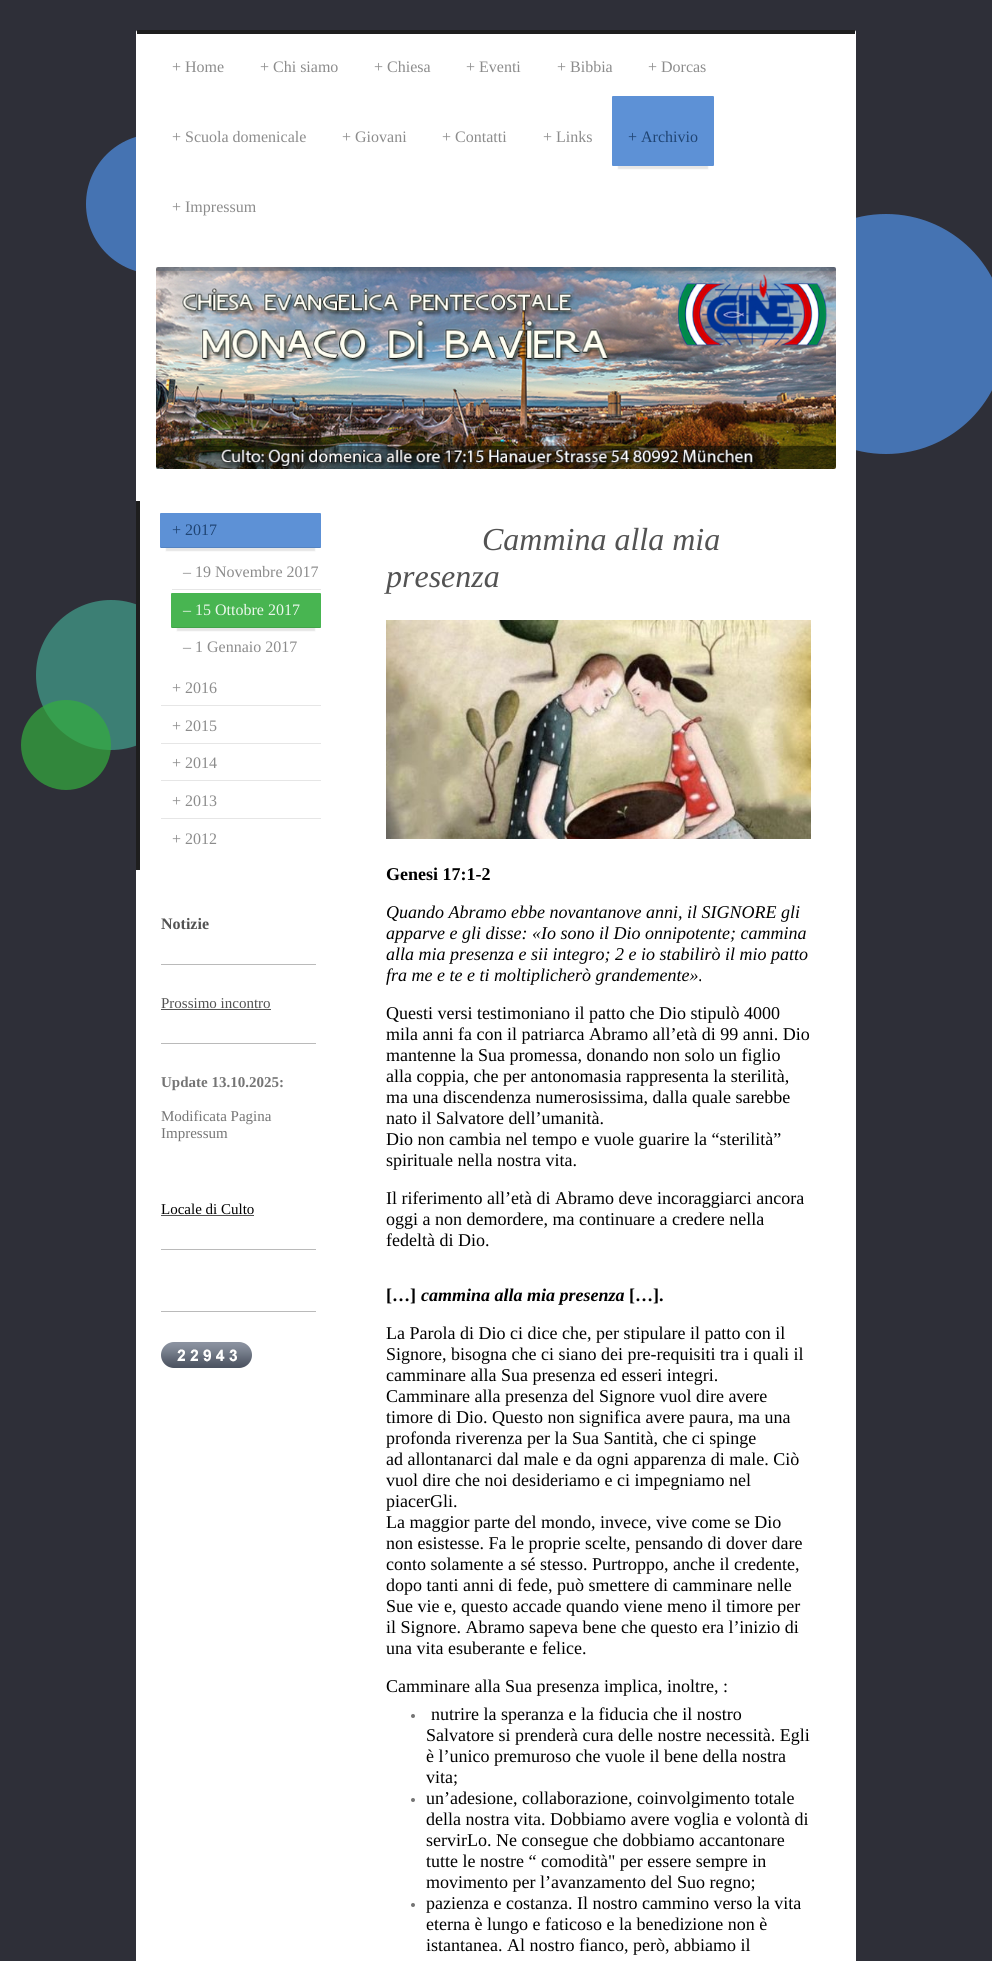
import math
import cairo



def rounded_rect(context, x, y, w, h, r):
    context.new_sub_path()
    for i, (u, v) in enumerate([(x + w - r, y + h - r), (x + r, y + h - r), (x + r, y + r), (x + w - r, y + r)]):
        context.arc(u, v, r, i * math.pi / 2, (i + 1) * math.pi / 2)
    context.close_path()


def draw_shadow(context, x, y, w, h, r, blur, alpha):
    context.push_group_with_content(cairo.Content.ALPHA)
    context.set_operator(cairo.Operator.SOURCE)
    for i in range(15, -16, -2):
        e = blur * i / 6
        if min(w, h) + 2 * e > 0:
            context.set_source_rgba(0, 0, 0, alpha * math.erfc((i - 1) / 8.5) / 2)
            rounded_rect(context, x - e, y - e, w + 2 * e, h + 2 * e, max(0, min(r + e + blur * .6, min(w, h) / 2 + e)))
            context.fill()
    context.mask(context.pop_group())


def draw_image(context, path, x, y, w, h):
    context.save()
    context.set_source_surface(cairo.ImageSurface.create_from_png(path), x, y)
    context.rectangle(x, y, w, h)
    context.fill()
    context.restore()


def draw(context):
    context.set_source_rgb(46 / 255, 47 / 255, 56 / 255)
    context.paint()
    context.set_source_rgb(1, 1, 1)
    context.new_path()
    context.move_to(138, 30)
    context.line_to(854, 30)
    context.curve_to(855, 30, 856, 31, 856, 32)
    context.line_to(856, 1961)
    context.curve_to(856, 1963, 854, 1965, 852, 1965)
    context.line_to(140, 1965)
    context.curve_to(138, 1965, 136, 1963, 136, 1961)
    context.line_to(136, 32)
    context.curve_to(136, 31, 137, 30, 138, 30)
    context.close_path()
    context.fill()
    context.set_source_rgb(30 / 255, 30 / 255, 30 / 255)
    context.rectangle(137, 30, 718, 4)
    context.fill()
    context.set_source_rgba(75 / 255, 133 / 255, 209 / 255, 0.8)
    context.arc(156, 204, 70, 0, 2 * math.pi)
    context.fill()
    context.arc(886, 334, 120, 0, 2 * math.pi)
    context.fill()
    context.set_source_rgb(1, 1, 1)
    context.rectangle(136, 134, 720, 317)
    context.fill()
    context.set_source_rgb(0, 0, 0)
    draw_shadow(context, 618, 111, 90, 58, 0, 0.5, 0.1)
    context.set_source_rgb(93 / 255, 145 / 255, 214 / 255)
    rounded_rect(context, 612, 96, 102, 70, 1)
    context.fill()
    draw_image(context, "images/1.png", 156, 267, 680, 202)
    context.set_source_rgba(64 / 255, 153 / 255, 136 / 255, 0.75)
    context.arc(111, 675, 75, 0, 2 * math.pi)
    context.fill()
    context.set_source_rgb(1, 1, 1)
    context.rectangle(136, 604, 50, 142)
    context.fill()
    context.set_source_rgb(30 / 255, 30 / 255, 30 / 255)
    context.rectangle(136, 501, 4, 369)
    context.fill()
    context.set_source_rgb(0, 0, 0)
    draw_shadow(context, 166, 528, 149, 23, 0, 0.5, 0.1)
    context.set_source_rgb(93 / 255, 145 / 255, 214 / 255)
    rounded_rect(context, 160, 513, 161, 35, 1)
    context.fill()
    context.set_source_rgba(0, 0, 0, 0.1)
    context.rectangle(161, 547, 160, 1)
    context.fill()
    context.set_source_rgb(230 / 255, 230 / 255, 230 / 255)
    context.rectangle(172, 589, 149, 1)
    context.fill()
    context.set_source_rgb(0, 0, 0)
    draw_shadow(context, 177, 608, 138, 23, 0, 0.5, 0.1)
    context.set_source_rgb(72 / 255, 181 / 255, 81 / 255)
    rounded_rect(context, 171, 593, 150, 35, 1)
    context.fill()
    context.set_source_rgba(0, 0, 0, 0.1)
    context.rectangle(172, 627, 149, 1)
    context.fill()
    context.set_source_rgb(230 / 255, 230 / 255, 230 / 255)
    context.rectangle(161, 705, 160, 1)
    context.fill()
    context.rectangle(161, 743, 160, 1)
    context.fill()
    context.rectangle(161, 780, 160, 1)
    context.fill()
    context.rectangle(161, 818, 160, 1)
    context.fill()
    context.set_source_rgb(186 / 255, 186 / 255, 186 / 255)
    context.rectangle(161, 964, 155, 1)
    context.fill()
    context.set_source_rgb(83 / 255, 83 / 255, 83 / 255)
    context.rectangle(161, 1009, 110, 1)
    context.fill()
    context.set_source_rgb(186 / 255, 186 / 255, 186 / 255)
    context.rectangle(161, 1043, 155, 1)
    context.fill()
    context.set_source_rgb(83 / 255, 83 / 255, 83 / 255)
    context.rectangle(161, 1215, 93, 1)
    context.fill()
    context.set_source_rgb(186 / 255, 186 / 255, 186 / 255)
    context.rectangle(161, 1249, 155, 1)
    context.fill()
    context.rectangle(161, 1311, 155, 1)
    context.fill()
    draw_image(context, "images/2.png", 161, 1342, 14, 26)
    draw_image(context, "images/3.png", 175, 1342, 13, 26)
    draw_image(context, "images/3.png", 188, 1342, 13, 26)
    draw_image(context, "images/4.png", 201, 1342, 13, 26)
    draw_image(context, "images/5.png", 214, 1342, 13, 26)
    draw_image(context, "images/6.png", 227, 1342, 12, 26)
    draw_image(context, "images/7.png", 239, 1342, 13, 26)
    draw_image(context, "images/8.png", 386, 620, 425, 219)
    context.set_source_rgb(117 / 255, 117 / 255, 117 / 255)
    context.arc(413, 1716, 2, 0, 2 * math.pi)
    context.fill()
    context.arc(413, 1800, 2, 0, 2 * math.pi)
    context.fill()
    context.arc(413, 1905, 2, 0, 2 * math.pi)
    context.fill()
    context.set_source_rgba(52 / 255, 173 / 255, 62 / 255, 0.7)
    context.arc(66, 745, 45, 0, 2 * math.pi)
    context.fill()
    context.select_font_face("Liberation Serif")
    context.set_font_size(16)
    context.set_source_rgb(140 / 255, 140 / 255, 140 / 255)
    context.move_to(172, 72)
    context.show_text("+ Home")
    context.move_to(260, 72)
    context.show_text("+ Chi siamo")
    context.move_to(374, 72)
    context.show_text("+ Chiesa")
    context.move_to(466, 72)
    context.show_text("+ Eventi")
    context.move_to(557, 72)
    context.show_text("+ Bibbia")
    context.move_to(648, 72)
    context.show_text("+ Dorcas")
    context.move_to(172, 142)
    context.show_text("+ Scuola domenicale")
    context.move_to(342, 142)
    context.show_text("+ Giovani")
    context.move_to(442, 142)
    context.show_text("+ Contatti")
    context.move_to(543, 142)
    context.show_text("+ Links")
    context.set_source_rgb(31 / 255, 68 / 255, 115 / 255)
    context.move_to(628, 142)
    context.show_text("+ Archivio")
    context.set_source_rgb(140 / 255, 140 / 255, 140 / 255)
    context.move_to(172, 212)
    context.show_text("+ Impressum")
    context.set_source_rgb(31 / 255, 68 / 255, 115 / 255)
    context.move_to(172, 535)
    context.show_text("+ 2017")
    context.set_source_rgb(140 / 255, 140 / 255, 140 / 255)
    context.move_to(183, 577)
    context.show_text("– 19 Novembre 2017")
    context.set_source_rgb(235 / 255, 247 / 255, 236 / 255)
    context.move_to(183, 615)
    context.show_text("– 15 Ottobre 2017")
    context.set_source_rgb(140 / 255, 140 / 255, 140 / 255)
    context.move_to(183, 652)
    context.show_text("– 1 Gennaio 2017")
    context.move_to(172, 693)
    context.show_text("+ 2016")
    context.move_to(172, 731)
    context.show_text("+ 2015")
    context.move_to(172, 768)
    context.show_text("+ 2014")
    context.move_to(172, 806)
    context.show_text("+ 2013")
    context.move_to(172, 844)
    context.show_text("+ 2012")
    context.select_font_face("Liberation Serif", cairo.FontSlant.NORMAL, cairo.FontWeight.BOLD)
    context.set_source_rgb(83 / 255, 83 / 255, 83 / 255)
    context.move_to(161, 929)
    context.show_text("Notizie")
    context.select_font_face("Liberation Serif")
    context.set_font_size(15)
    context.move_to(161, 1008)
    context.show_text("Prossimo incontro")
    context.select_font_face("Liberation Serif", cairo.FontSlant.NORMAL, cairo.FontWeight.BOLD)
    context.set_source_rgb(117 / 255, 117 / 255, 117 / 255)
    context.move_to(161, 1087)
    context.show_text("Update 13.10.2025:")
    context.select_font_face("Liberation Serif")
    context.move_to(161, 1121)
    context.show_text("Modificata Pagina")
    context.move_to(161, 1138)
    context.show_text("Impressum")
    context.set_source_rgb(0, 0, 0)
    context.move_to(161, 1214)
    context.show_text("Locale di Culto")
    context.select_font_face("Liberation Serif", cairo.FontSlant.ITALIC)
    context.set_font_size(32)
    context.set_source_rgb(83 / 255, 83 / 255, 83 / 255)
    context.move_to(482, 550)
    context.show_text("Cammina alla mia")
    context.move_to(386, 587)
    context.show_text("presenza")
    context.select_font_face("Liberation Serif", cairo.FontSlant.NORMAL, cairo.FontWeight.BOLD)
    context.set_font_size(18)
    context.set_source_rgb(0, 0, 0)
    context.move_to(386, 880)
    context.show_text("Genesi 17:1-2")
    context.select_font_face("Liberation Serif", cairo.FontSlant.ITALIC)
    context.move_to(386, 918)
    context.show_text("Quando Abramo ebbe novantanove anni, il SIGNORE gli")
    context.move_to(386, 939)
    context.show_text("apparve e gli disse: «Io sono il Dio onnipotente; cammina")
    context.move_to(386, 960)
    context.show_text("alla mia presenza e sii integro; 2 e io stabilirò il mio patto")
    context.move_to(386, 981)
    context.show_text("fra me e te e ti moltiplicherò grandemente».")
    context.select_font_face("Liberation Serif")
    context.move_to(386, 1019)
    context.show_text("Questi versi testimoniano il patto che Dio stipulò 4000")
    context.move_to(386, 1040)
    context.show_text("mila anni fa con il patriarca Abramo all’età di 99 anni. Dio")
    context.move_to(386, 1061)
    context.show_text("mantenne la Sua promessa, donando non solo un figlio")
    context.move_to(386, 1082)
    context.show_text("alla coppia, che per antonomasia rappresenta la sterilità,")
    context.move_to(386, 1103)
    context.show_text("ma una discendenza numerosissima, dalla quale sarebbe")
    context.move_to(386, 1124)
    context.show_text("nato il Salvatore dell’umanità.")
    context.move_to(386, 1145)
    context.show_text("Dio non cambia nel tempo e vuole guarire la “sterilità”")
    context.move_to(386, 1166)
    context.show_text("spirituale nella nostra vita.")
    context.move_to(386, 1204)
    context.show_text("Il riferimento all’età di Abramo deve incoraggiarci ancora")
    context.move_to(386, 1225)
    context.show_text("oggi a non demordere, ma continuare a credere nella")
    context.move_to(386, 1246)
    context.show_text("fedeltà di Dio.")
    context.select_font_face("Liberation Serif", cairo.FontSlant.NORMAL, cairo.FontWeight.BOLD)
    context.move_to(386, 1301)
    context.show_text("[…]")
    context.select_font_face("Liberation Serif", cairo.FontSlant.ITALIC, cairo.FontWeight.BOLD)
    context.move_to(421, 1301)
    context.show_text("cammina alla mia presenza")
    context.select_font_face("Liberation Serif", cairo.FontSlant.NORMAL, cairo.FontWeight.BOLD)
    context.move_to(629, 1301)
    context.show_text("[…].")
    context.select_font_face("Liberation Serif")
    context.move_to(386, 1339)
    context.show_text("La Parola di Dio ci dice che, per stipulare il patto con il")
    context.move_to(386, 1360)
    context.show_text("Signore, bisogna che ci siano dei pre-requisiti tra i quali il")
    context.move_to(386, 1381)
    context.show_text("camminare alla Sua presenza ed esseri integri.")
    context.move_to(386, 1402)
    context.show_text("Camminare alla presenza del Signore vuol dire avere")
    context.move_to(386, 1423)
    context.show_text("timore di Dio. Questo non significa avere paura, ma una")
    context.move_to(386, 1444)
    context.show_text("profonda riverenza per la Sua Santità, che ci spinge")
    context.move_to(386, 1465)
    context.show_text("ad allontanarci dal male e da ogni apparenza di male. Ciò")
    context.move_to(386, 1486)
    context.show_text("vuol dire che noi desideriamo e ci impegniamo nel")
    context.move_to(386, 1507)
    context.show_text("piacerGli.")
    context.move_to(386, 1528)
    context.show_text("La maggior parte del mondo, invece, vive come se Dio")
    context.move_to(386, 1549)
    context.show_text("non esistesse. Fa le proprie scelte, pensando di dover dare")
    context.move_to(386, 1570)
    context.show_text("conto solamente a sé stesso. Purtroppo, anche il credente,")
    context.move_to(386, 1591)
    context.show_text("dopo tanti anni di fede, può smettere di camminare nelle")
    context.move_to(386, 1612)
    context.show_text("Sue vie e, questo accade quando viene meno il timore per")
    context.move_to(386, 1633)
    context.show_text("il Signore. Abramo sapeva bene che questo era l’inizio di")
    context.move_to(386, 1654)
    context.show_text("una vita esuberante e felice.")
    context.move_to(386, 1692)
    context.show_text("Camminare alla Sua presenza implica, inoltre, :")
    context.move_to(431, 1720)
    context.show_text("nutrire la speranza e la fiducia che il nostro")
    context.move_to(426, 1741)
    context.show_text("Salvatore si prenderà cura delle nostre necessità. Egli")
    context.move_to(426, 1762)
    context.show_text("è l’unico premuroso che vuole il bene della nostra")
    context.move_to(426, 1783)
    context.show_text("vita;")
    context.move_to(426, 1804)
    context.show_text("un’adesione, collaborazione, coinvolgimento totale")
    context.move_to(426, 1825)
    context.show_text("della nostra vita. Dobbiamo avere voglia e volontà di")
    context.move_to(426, 1846)
    context.show_text("servirLo. Ne consegue che dobbiamo accantonare")
    context.move_to(426, 1867)
    context.show_text("tutte le nostre “ comodità\" per essere sempre in")
    context.move_to(426, 1888)
    context.show_text("movimento per l’avanzamento del Suo regno;")
    context.move_to(426, 1909)
    context.show_text("pazienza e costanza. Il nostro cammino verso la vita")
    context.move_to(426, 1930)
    context.show_text("eterna è lungo e faticoso e la benedizione non è")
    context.move_to(426, 1951)
    context.show_text("istantanea. Al nostro fianco, però, abbiamo il")


surface = cairo.ImageSurface(cairo.Format.RGB24, 992, 1961)
context = cairo.Context(surface)
options = cairo.FontOptions()
options.set_hint_metrics(cairo.HintMetrics.OFF)
options.set_hint_style(cairo.HintStyle.NONE)
context.set_font_options(options)
context.set_miter_limit(4)
draw(context)
surface.write_to_png("out.png")
